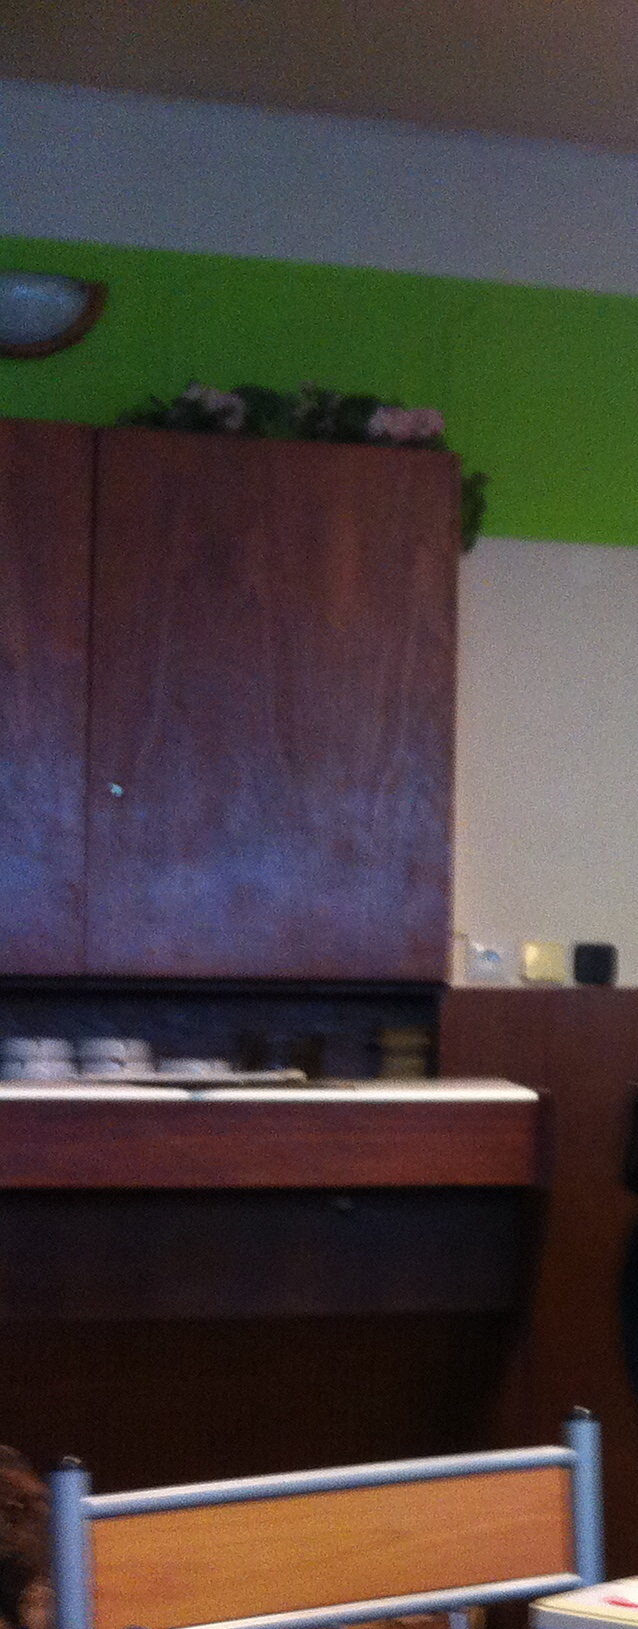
import math
import cairo



def draw_image(context, path, x, y, w, h):
    context.save()
    context.set_source_surface(cairo.ImageSurface.create_from_png(path), x, y)
    context.rectangle(x, y, w, h)
    context.fill()
    context.restore()


def draw(context):
    context.set_source_rgb(1, 1, 1)
    context.paint()
    draw_image(context, "images/1.png", 0, 0, 638, 1629)


surface = cairo.ImageSurface(cairo.Format.RGB24, 638, 1629)
context = cairo.Context(surface)
options = cairo.FontOptions()
options.set_hint_metrics(cairo.HintMetrics.OFF)
options.set_hint_style(cairo.HintStyle.NONE)
context.set_font_options(options)
context.set_miter_limit(4)
draw(context)
surface.write_to_png("out.png")
